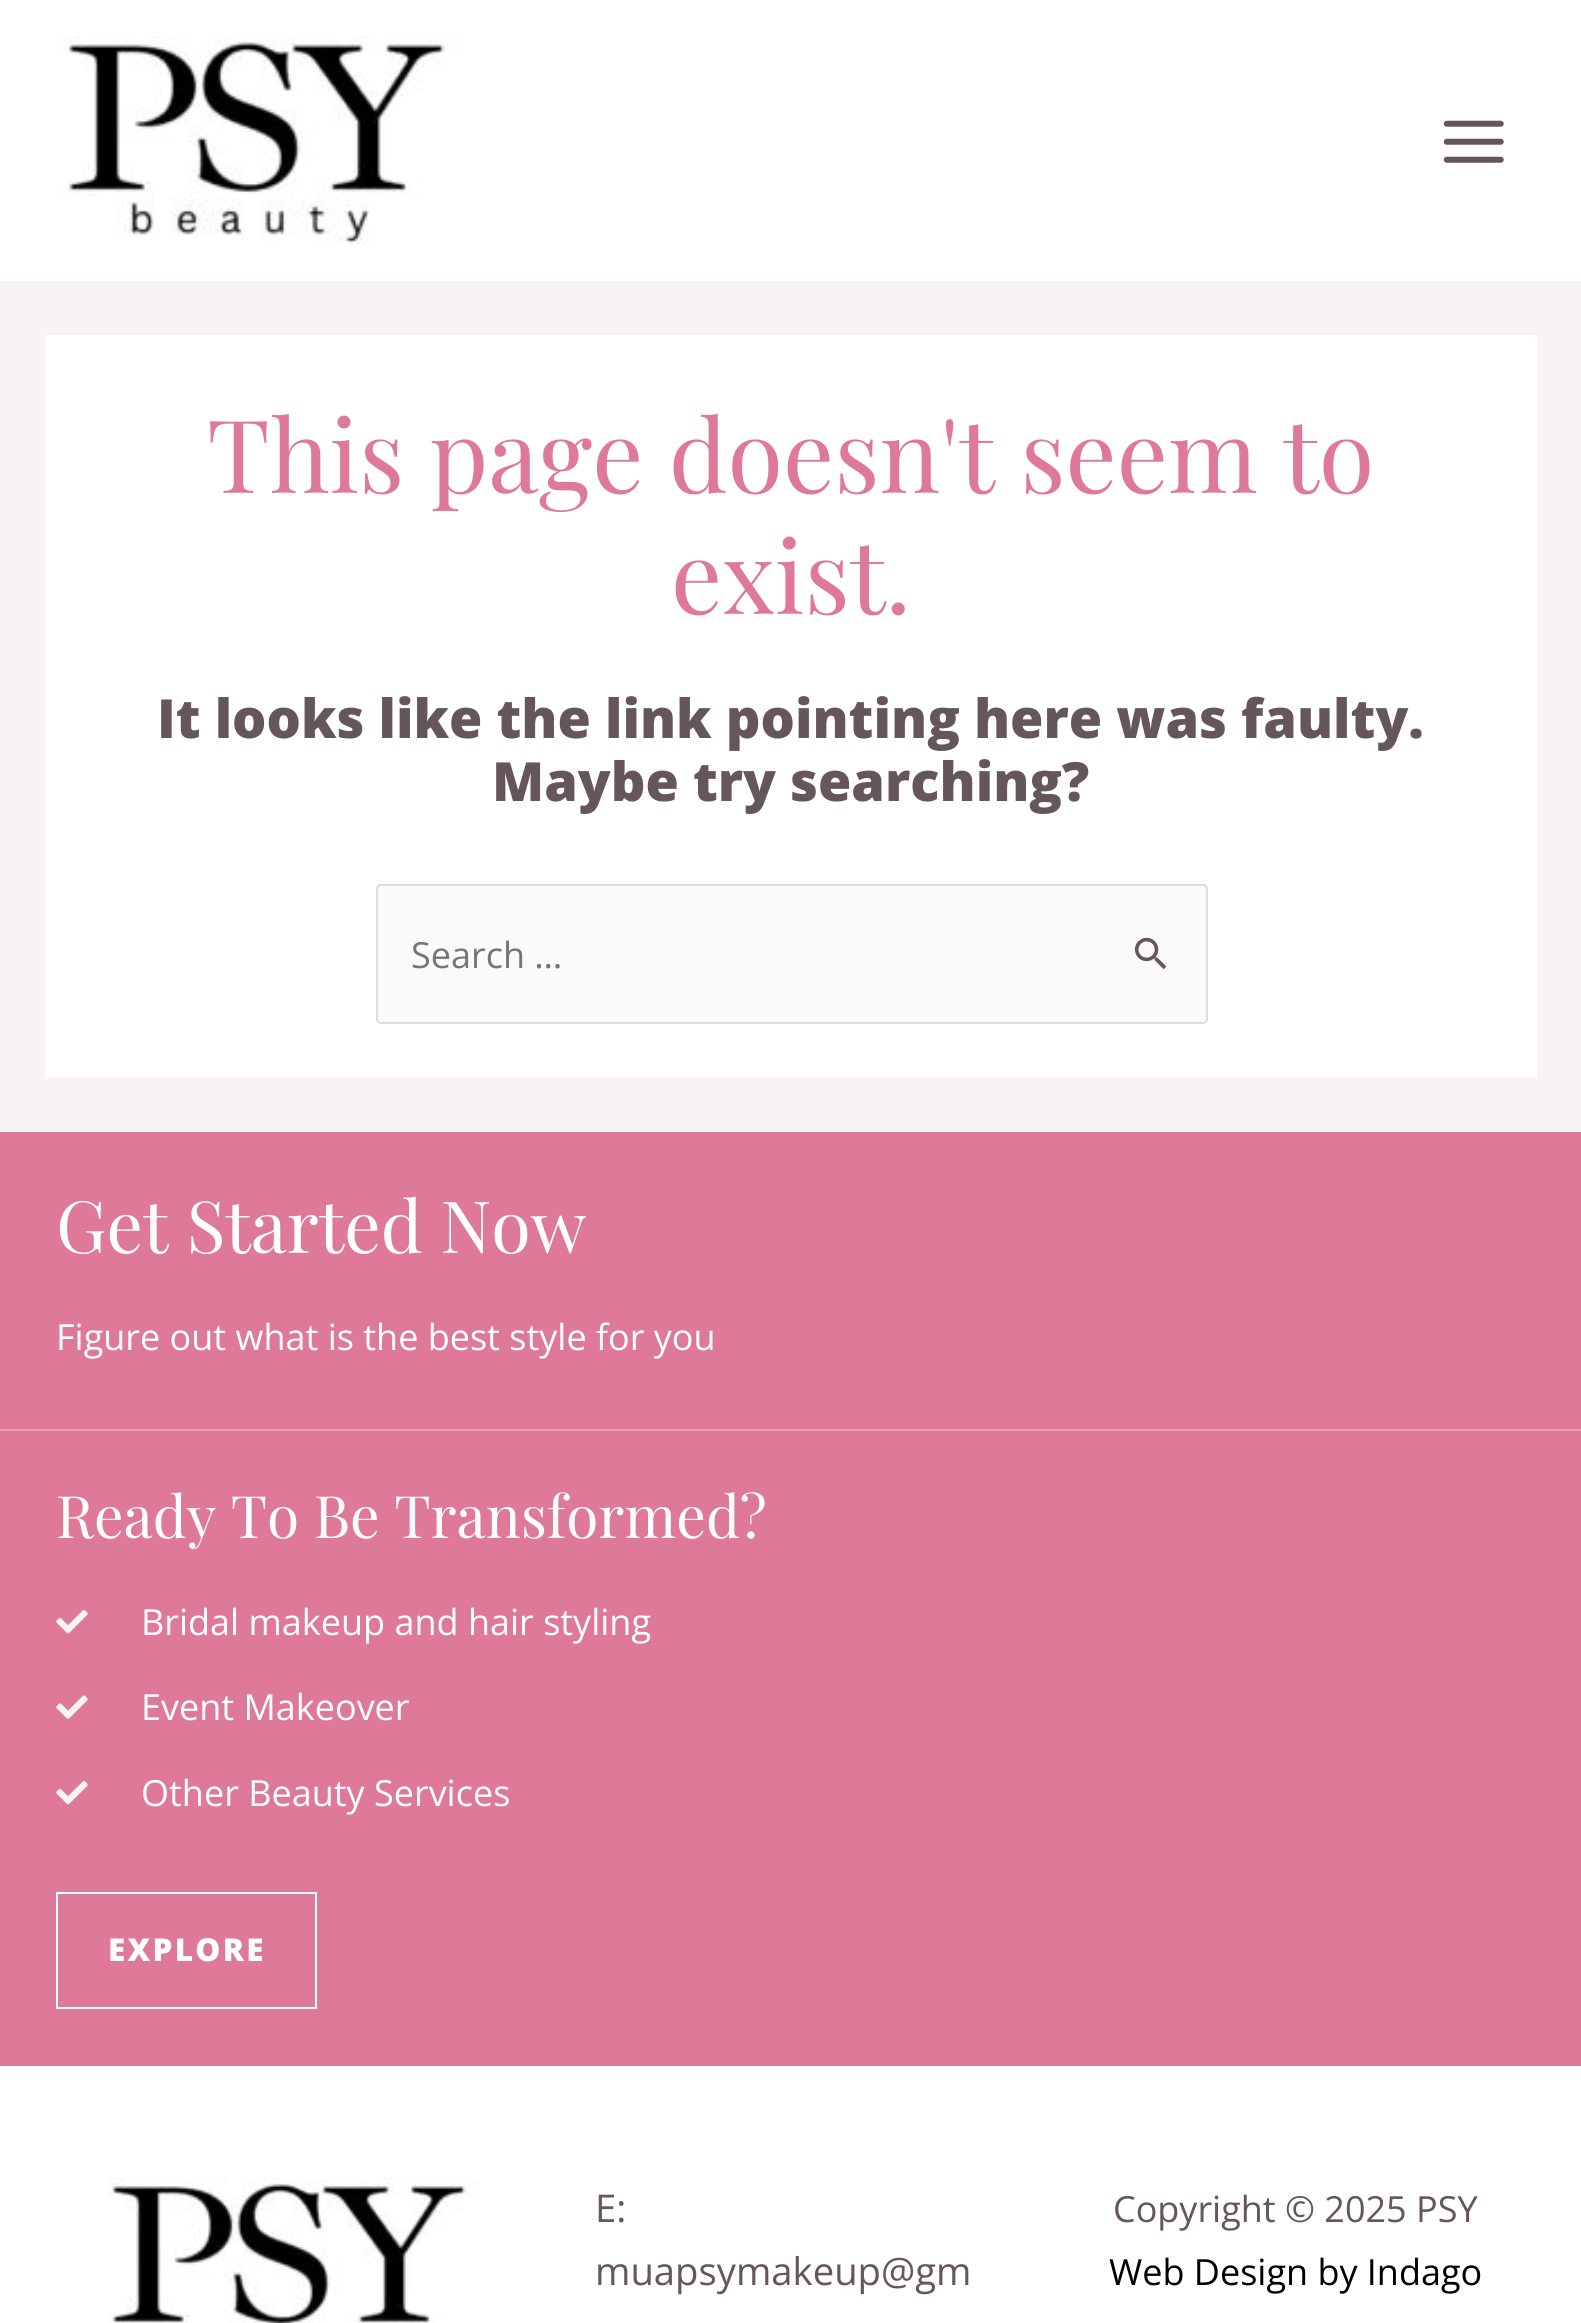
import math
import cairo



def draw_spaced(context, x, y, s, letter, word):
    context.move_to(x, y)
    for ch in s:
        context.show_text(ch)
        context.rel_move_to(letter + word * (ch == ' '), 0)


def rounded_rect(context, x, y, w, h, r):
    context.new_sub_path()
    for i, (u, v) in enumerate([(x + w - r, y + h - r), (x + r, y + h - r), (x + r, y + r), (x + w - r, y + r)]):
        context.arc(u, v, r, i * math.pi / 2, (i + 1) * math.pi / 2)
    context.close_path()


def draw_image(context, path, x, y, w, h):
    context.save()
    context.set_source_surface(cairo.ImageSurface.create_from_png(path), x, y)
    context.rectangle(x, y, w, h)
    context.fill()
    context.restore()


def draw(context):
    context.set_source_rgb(248 / 255, 243 / 255, 245 / 255)
    context.paint()
    context.set_source_rgb(1, 1, 1)
    context.rectangle(0, 0, 1581, 281)
    context.fill()
    draw_image(context, "images/1.png", 63, 36, 395, 209)
    draw_image(context, "images/2.png", 1443, 120, 61, 43)
    context.rectangle(45, 335, 1492, 743)
    context.fill()
    context.set_source_rgb(250 / 255, 250 / 255, 250 / 255)
    rounded_rect(context, 377, 885, 830, 138, 4)
    context.fill_preserve()
    context.set_source_rgb(221 / 255, 221 / 255, 221 / 255)
    context.stroke()
    draw_image(context, "images/3.png", 1134, 937, 33, 33)
    context.set_source_rgb(222 / 255, 121 / 255, 151 / 255)
    context.rectangle(0, 1132, 1581, 297)
    context.fill()
    context.set_source_rgb(231 / 255, 159 / 255, 180 / 255)
    context.rectangle(0, 1429, 1581, 2)
    context.fill()
    context.set_source_rgb(222 / 255, 121 / 255, 151 / 255)
    context.rectangle(0, 1431, 1581, 635)
    context.fill()
    draw_image(context, "images/4.png", 56, 1610, 32, 24)
    draw_image(context, "images/5.png", 56, 1695, 32, 24)
    draw_image(context, "images/4.png", 56, 1781, 32, 24)
    context.rectangle(57, 1893, 259, 115)
    context.set_source_rgb(1, 1, 1)
    context.stroke()
    context.rectangle(0, 2066, 1581, 257)
    context.fill()
    draw_image(context, "images/6.png", 107, 2178, 372, 145)
    context.select_font_face("Playfair Display")
    context.set_font_size(101.25)
    context.set_source_rgb(222 / 255, 121 / 255, 151 / 255)
    context.move_to(207, 493)
    context.show_text("This page doesn't seem to")
    context.move_to(671, 614)
    context.show_text("exist.")
    context.select_font_face("Open Sans ExtraBold")
    context.set_font_size(54)
    context.set_source_rgb(100 / 255, 86 / 255, 89 / 255)
    context.move_to(157, 738)
    context.show_text("It looks like the link pointing here was faulty.")
    context.move_to(492, 801)
    context.show_text("Maybe try searching?")
    context.select_font_face("Open Sans")
    context.set_font_size(36)
    context.set_source_rgb(117 / 255, 117 / 255, 117 / 255)
    context.move_to(411, 968)
    context.show_text("Search …")
    context.select_font_face("Playfair Display")
    context.set_font_size(72)
    context.set_source_rgb(1, 1, 1)
    context.move_to(56, 1253)
    context.show_text("Get Started Now")
    context.select_font_face("Open Sans")
    context.set_font_size(36)
    context.move_to(56, 1350)
    context.show_text("Figure out what is the best style for you")
    context.select_font_face("Playfair Display")
    context.set_font_size(58.5)
    context.move_to(56, 1538)
    context.show_text("Ready To Be Transformed?")
    context.select_font_face("Open Sans")
    context.set_font_size(36)
    context.move_to(141, 1635)
    context.show_text("Bridal makeup and hair styling")
    context.move_to(141, 1720)
    context.show_text("Event Makeover")
    context.move_to(141, 1806)
    context.show_text("Other Beauty Services")
    context.select_font_face("Open Sans ExtraBold")
    context.set_font_size(31.5)
    draw_spaced(context, 108, 1961, "EXPLORE", 2.25, 0)
    context.select_font_face("Open Sans")
    context.set_font_size(38.25)
    context.set_source_rgb(100 / 255, 86 / 255, 89 / 255)
    context.move_to(595, 2222)
    context.show_text("E:")
    context.move_to(595, 2285)
    context.show_text("muapsymakeup@gm")
    context.set_font_size(36)
    context.move_to(1113, 2222)
    context.show_text("Copyright © 2025 PSY")
    context.set_source_rgb(0, 0, 0)
    context.move_to(1109, 2285)
    context.show_text("Web Design by Indago")


surface = cairo.ImageSurface(cairo.Format.RGB24, 1581, 2323)
context = cairo.Context(surface)
options = cairo.FontOptions()
options.set_hint_metrics(cairo.HintMetrics.OFF)
options.set_hint_style(cairo.HintStyle.NONE)
context.set_font_options(options)
context.set_miter_limit(4)
draw(context)
surface.write_to_png("out.png")
